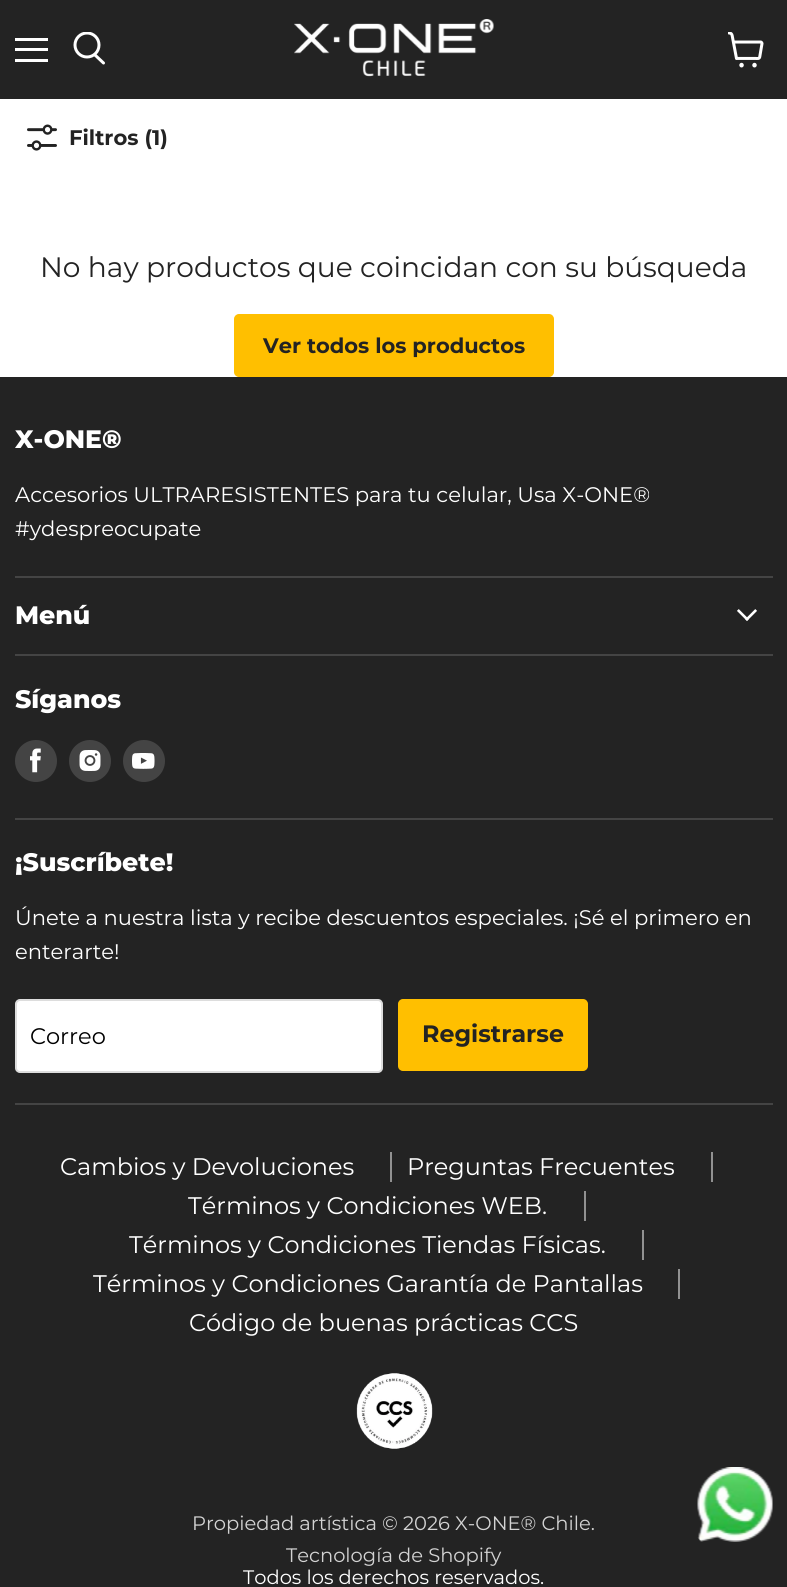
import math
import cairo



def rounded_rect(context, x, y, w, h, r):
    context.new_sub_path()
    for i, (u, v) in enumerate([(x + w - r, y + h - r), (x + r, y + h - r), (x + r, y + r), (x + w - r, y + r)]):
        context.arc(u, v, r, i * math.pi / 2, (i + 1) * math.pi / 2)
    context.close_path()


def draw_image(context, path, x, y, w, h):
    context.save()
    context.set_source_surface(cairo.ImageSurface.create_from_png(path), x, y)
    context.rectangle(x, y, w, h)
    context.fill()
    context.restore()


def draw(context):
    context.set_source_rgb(1, 1, 1)
    context.paint()
    context.set_source_rgb(35 / 255, 35 / 255, 35 / 255)
    context.rectangle(0, 0, 787, 99)
    context.fill()
    context.set_source_rgb(1, 1, 1)
    context.rectangle(15, 38, 33, 3)
    context.fill()
    context.rectangle(15, 48, 33, 3)
    context.fill()
    context.rectangle(15, 59, 33, 3)
    context.fill()
    context.new_path()
    context.move_to(103.5, 63)
    context.line_to(95, 55)
    context.set_line_width(3)
    context.set_line_cap(cairo.LineCap.ROUND)
    context.stroke()
    context.save()
    context.rectangle(72, 32, 35, 36)
    context.clip()
    context.arc(87, 45, 12, 0, 2 * math.pi)
    context.set_line_cap(cairo.LineCap.BUTT)
    context.stroke()
    context.restore()
    draw_image(context, "images/1.png", 294, 19, 200, 58)
    draw_image(context, "images/2.png", 728, 32, 36, 36)
    draw_image(context, "images/3.png", 27, 124, 30, 27)
    context.set_source_rgb(1, 191 / 255, 0)
    rounded_rect(context, 235, 315, 318, 61, 4)
    context.fill_preserve()
    context.set_line_width(2)
    context.set_line_cap(cairo.LineCap.BUTT)
    context.stroke()
    context.set_source_rgb(35 / 255, 35 / 255, 35 / 255)
    context.rectangle(0, 377, 787, 1210)
    context.fill()
    context.set_source_rgb(68 / 255, 68 / 255, 68 / 255)
    context.rectangle(15, 576, 758, 2)
    context.fill()
    context.rectangle(15, 654, 758, 2)
    context.fill()
    draw_image(context, "images/4.png", 737, 609, 20, 12)
    context.rectangle(15, 818, 758, 2)
    context.fill()
    context.arc(36, 761, 21, 0, 2 * math.pi)
    context.fill()
    draw_image(context, "images/5.png", 30, 748, 11, 25)
    context.arc(90, 761, 21, 0, 2 * math.pi)
    context.fill()
    draw_image(context, "images/6.png", 79, 750, 22, 21)
    context.arc(144, 761, 21, 0, 2 * math.pi)
    context.fill()
    draw_image(context, "images/7.png", 132, 753, 23, 16)
    context.rectangle(15, 1103, 758, 2)
    context.fill()
    context.set_source_rgb(1, 1, 1)
    rounded_rect(context, 16, 1000, 366, 72, 4)
    context.fill_preserve()
    context.set_source_rgb(221 / 255, 221 / 255, 221 / 255)
    context.stroke()
    context.set_source_rgb(1, 191 / 255, 0)
    rounded_rect(context, 399, 1000, 188, 70, 4)
    context.fill_preserve()
    context.stroke()
    context.set_source_rgb(145 / 255, 145 / 255, 145 / 255)
    context.rectangle(390, 1152, 2, 30)
    context.fill()
    context.rectangle(711, 1152, 2, 30)
    context.fill()
    context.rectangle(584, 1191, 2, 30)
    context.fill()
    context.rectangle(642, 1230, 2, 30)
    context.fill()
    context.rectangle(678, 1269, 2, 30)
    context.fill()
    draw_image(context, "images/8.png", 356, 1373, 77, 76)
    draw_image(context, "images/9.png", 697, 1467, 76, 75)
    context.select_font_face("Montserrat", cairo.FontSlant.NORMAL, cairo.FontWeight.BOLD)
    context.set_font_size(21.1)
    context.set_source_rgb(35 / 255, 35 / 255, 35 / 255)
    context.move_to(69, 145)
    context.show_text("Filtros (1)")
    context.select_font_face("Montserrat")
    context.set_font_size(28.1)
    context.move_to(40, 277)
    context.show_text("No hay productos que coincidan con su búsqueda")
    context.select_font_face("Montserrat", cairo.FontSlant.NORMAL, cairo.FontWeight.BOLD)
    context.set_font_size(21)
    context.move_to(263, 353)
    context.show_text("Ver todos los productos")
    context.select_font_face("Montserrat ExtraBold")
    context.set_font_size(25.25)
    context.set_source_rgb(1, 1, 1)
    context.move_to(15, 448)
    context.show_text("X-ONE®")
    context.select_font_face("Montserrat")
    context.set_font_size(21.1)
    context.move_to(15, 502)
    context.show_text("Accesorios ULTRARESISTENTES para tu celular, Usa X-ONE®")
    context.move_to(15, 536)
    context.show_text("#ydespreocupate")
    context.select_font_face("Montserrat ExtraBold")
    context.set_font_size(25.25)
    context.move_to(15, 624)
    context.show_text("Menú")
    context.move_to(15, 708)
    context.show_text("Síganos")
    context.move_to(15, 871)
    context.show_text("¡Suscríbete!")
    context.select_font_face("Montserrat")
    context.set_font_size(21.1)
    context.move_to(15, 925)
    context.show_text("Únete a nuestra lista y recibe descuentos especiales. ¡Sé el primero en")
    context.move_to(15, 959)
    context.show_text("enterarte!")
    context.set_font_size(22.5)
    context.set_source_rgb(0, 0, 0)
    context.move_to(30, 1044)
    context.show_text("Correo")
    context.select_font_face("Montserrat", cairo.FontSlant.NORMAL, cairo.FontWeight.BOLD)
    context.set_font_size(23.75)
    context.set_source_rgb(35 / 255, 35 / 255, 35 / 255)
    context.move_to(422, 1042)
    context.show_text("Registrarse")
    context.select_font_face("Montserrat")
    context.set_font_size(24)
    context.set_source_rgb(1, 1, 1)
    context.move_to(60, 1175)
    context.show_text("Cambios y Devoluciones")
    context.move_to(407, 1175)
    context.show_text("Preguntas Frecuentes")
    context.move_to(188, 1214)
    context.show_text("Términos y Condiciones WEB.")
    context.move_to(129, 1253)
    context.show_text("Términos y Condiciones Tiendas Físicas.")
    context.move_to(93, 1292)
    context.show_text("Términos y Condiciones Garantía de Pantallas")
    context.move_to(189, 1331)
    context.show_text("Código de buenas prácticas CCS")
    context.set_font_size(19.5)
    context.set_source_rgb(211 / 255, 211 / 255, 211 / 255)
    context.move_to(192, 1530)
    context.show_text("Propiedad artística © 2026 X-ONE® Chile.")
    context.move_to(286, 1562)
    context.show_text("Tecnología de Shopify")
    context.set_source_rgb(1, 1, 1)
    context.move_to(243, 1584)
    context.show_text("Todos los derechos reservados.")


surface = cairo.ImageSurface(cairo.Format.RGB24, 787, 1587)
context = cairo.Context(surface)
options = cairo.FontOptions()
options.set_hint_metrics(cairo.HintMetrics.OFF)
options.set_hint_style(cairo.HintStyle.NONE)
context.set_font_options(options)
context.set_miter_limit(4)
draw(context)
surface.write_to_png("out.png")
